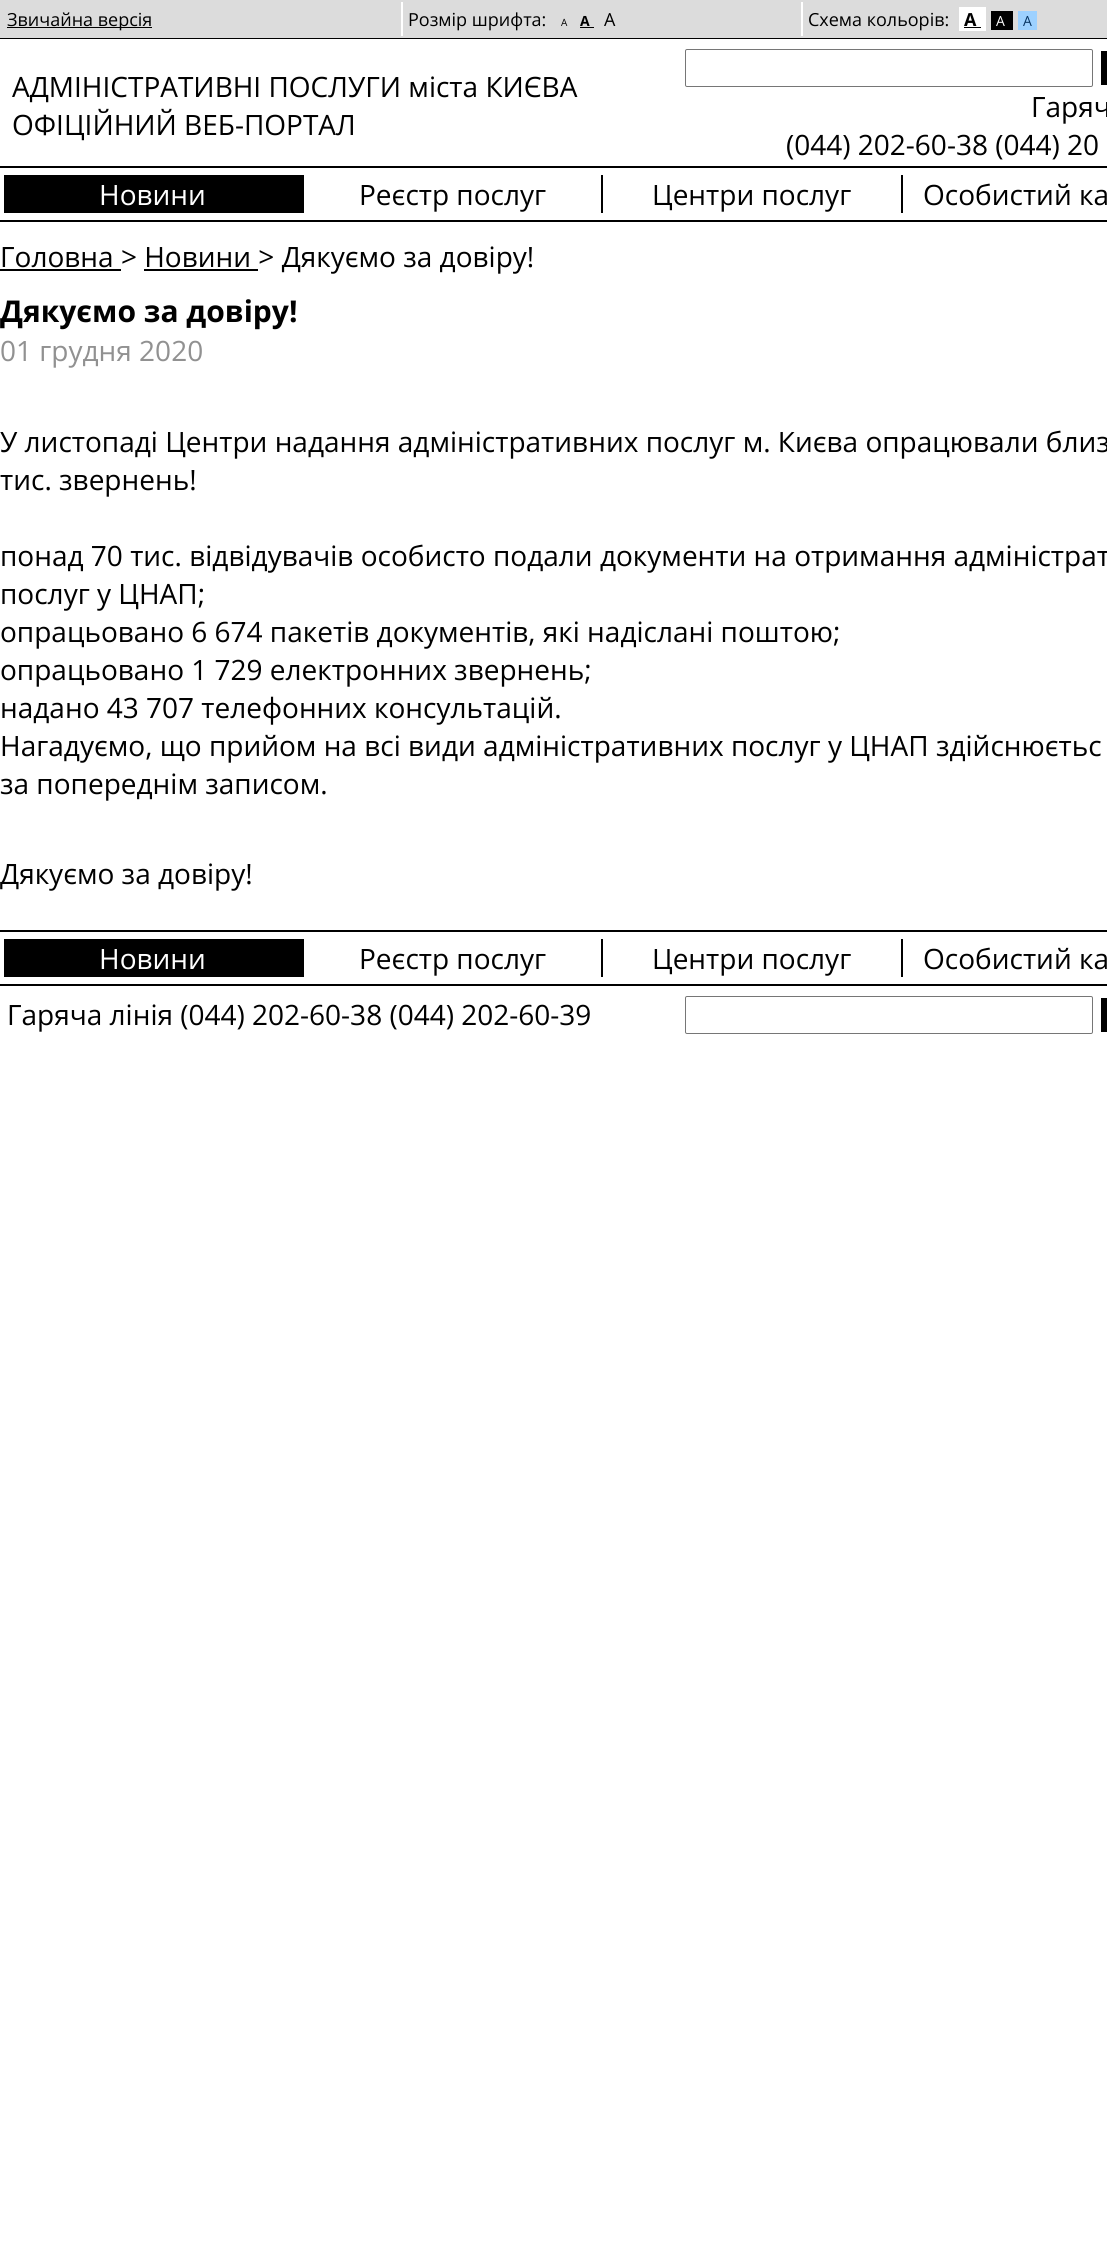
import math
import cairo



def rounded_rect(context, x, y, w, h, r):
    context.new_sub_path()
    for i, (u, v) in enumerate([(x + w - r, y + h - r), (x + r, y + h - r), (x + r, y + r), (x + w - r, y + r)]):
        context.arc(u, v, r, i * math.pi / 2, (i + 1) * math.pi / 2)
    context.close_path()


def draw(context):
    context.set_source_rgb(1, 1, 1)
    context.paint()
    context.set_source_rgb(220 / 255, 220 / 255, 220 / 255)
    context.rectangle(0, 0, 1107, 38)
    context.fill()
    context.set_source_rgb(0, 0, 0)
    context.rectangle(7, 27, 145, 1)
    context.fill()
    context.set_source_rgb(1, 1, 1)
    context.rectangle(401, 2, 2, 34)
    context.fill()
    context.set_source_rgb(0, 0, 0)
    context.rectangle(580, 27, 14, 1)
    context.fill()
    context.set_source_rgb(1, 1, 1)
    context.rectangle(801, 2, 2, 34)
    context.fill()
    context.rectangle(959, 7, 27, 24)
    context.fill()
    context.set_source_rgb(0, 0, 0)
    context.rectangle(964, 27, 17, 1)
    context.fill()
    context.rectangle(991, 11, 22, 19)
    context.fill()
    context.set_source_rgb(157 / 255, 209 / 255, 1)
    context.rectangle(1018, 11, 19, 19)
    context.fill()
    context.set_source_rgb(0, 0, 0)
    context.rectangle(0, 38, 1107, 1)
    context.fill()
    rounded_rect(context, 685.5, 49.5, 407, 37, 1.5)
    context.set_source_rgb(118 / 255, 118 / 255, 118 / 255)
    context.set_line_width(1)
    context.stroke()
    context.set_source_rgb(0, 0, 0)
    context.rectangle(1101, 51, 6, 34)
    context.fill()
    context.rectangle(0, 166, 1107, 2)
    context.fill()
    context.rectangle(4, 175, 300, 38)
    context.fill()
    context.rectangle(601, 175, 2, 38)
    context.fill()
    context.rectangle(901, 175, 2, 38)
    context.fill()
    context.rectangle(0, 220, 1107, 2)
    context.fill()
    context.rectangle(0, 269, 121, 2)
    context.fill()
    context.rectangle(144, 269, 114, 2)
    context.fill()
    context.rectangle(0, 930, 1107, 2)
    context.fill()
    context.rectangle(4, 939, 300, 38)
    context.fill()
    context.rectangle(601, 939, 2, 38)
    context.fill()
    context.rectangle(901, 939, 2, 38)
    context.fill()
    context.rectangle(0, 984, 1107, 2)
    context.fill()
    rounded_rect(context, 685.5, 996.5, 407, 37, 1.5)
    context.set_source_rgb(118 / 255, 118 / 255, 118 / 255)
    context.stroke()
    context.set_source_rgb(0, 0, 0)
    context.rectangle(1101, 998, 6, 34)
    context.fill()
    context.select_font_face("Open Sans")
    context.set_font_size(18)
    context.move_to(7, 26)
    context.show_text("Звичайна версія")
    context.move_to(408, 26)
    context.show_text("Розмір шрифта:")
    context.set_font_size(10)
    context.move_to(561, 26)
    context.show_text("A")
    context.select_font_face("Open Sans", cairo.FontSlant.NORMAL, cairo.FontWeight.BOLD)
    context.set_font_size(14)
    context.move_to(580, 26)
    context.show_text("A")
    context.select_font_face("Open Sans")
    context.set_font_size(18)
    context.move_to(604, 26)
    context.show_text("A")
    context.move_to(808, 26)
    context.show_text("Схема кольорів:")
    context.select_font_face("Open Sans", cairo.FontSlant.NORMAL, cairo.FontWeight.BOLD)
    context.move_to(964, 26)
    context.show_text("A")
    context.select_font_face("Open Sans")
    context.set_font_size(14)
    context.set_source_rgb(1, 1, 1)
    context.move_to(996, 26)
    context.show_text("A")
    context.set_source_rgb(6 / 255, 52 / 255, 98 / 255)
    context.move_to(1023, 26)
    context.show_text("A")
    context.set_font_size(28)
    context.set_source_rgb(0, 0, 0)
    context.move_to(12, 97)
    context.show_text("АДМІНІСТРАТИВНІ ПОСЛУГИ міста КИЄВА")
    context.move_to(12, 135)
    context.show_text("ОФІЦІЙНИЙ ВЕБ-ПОРТАЛ")
    context.move_to(1031, 117)
    context.show_text("Гаряч")
    context.move_to(786, 155)
    context.show_text("(044) 202-60-38 (044) 20")
    context.set_source_rgb(1, 1, 1)
    context.move_to(99, 205)
    context.show_text("Новини")
    context.set_source_rgb(0, 0, 0)
    context.move_to(359, 205)
    context.show_text("Реєстр послуг")
    context.move_to(652, 205)
    context.show_text("Центри послуг")
    context.move_to(923, 205)
    context.show_text("Особистий ка")
    context.move_to(0, 267)
    context.show_text("Головна > Новини > Дякуємо за довіру!")
    context.select_font_face("Open Sans", cairo.FontSlant.NORMAL, cairo.FontWeight.BOLD)
    context.set_font_size(30)
    context.move_to(0, 322)
    context.show_text("Дякуємо за довіру!")
    context.select_font_face("Open Sans")
    context.set_font_size(28)
    context.set_source_rgb(145 / 255, 145 / 255, 145 / 255)
    context.move_to(0, 361)
    context.show_text("01 грудня 2020")
    context.set_source_rgb(0, 0, 0)
    context.move_to(0, 452)
    context.show_text("У листопаді Центри надання адміністративних послуг м. Києва опрацювали близ")
    context.move_to(0, 490)
    context.show_text("тис. звернень!")
    context.move_to(0, 566)
    context.show_text("понад 70 тис. відвідувачів особисто подали документи на отримання адміністрат")
    context.move_to(0, 604)
    context.show_text("послуг у ЦНАП;")
    context.move_to(0, 642)
    context.show_text("опрацьовано 6 674 пакетів документів, які надіслані поштою;")
    context.move_to(0, 680)
    context.show_text("опрацьовано 1 729 електронних звернень;")
    context.move_to(0, 718)
    context.show_text("надано 43 707 телефонних консультацій.")
    context.move_to(0, 756)
    context.show_text("Нагадуємо, що прийом на всі види адміністративних послуг у ЦНАП здійснюєтьс")
    context.move_to(0, 794)
    context.show_text("за попереднім записом.")
    context.move_to(0, 884)
    context.show_text("Дякуємо за довіру!")
    context.set_source_rgb(1, 1, 1)
    context.move_to(99, 969)
    context.show_text("Новини")
    context.set_source_rgb(0, 0, 0)
    context.move_to(359, 969)
    context.show_text("Реєстр послуг")
    context.move_to(652, 969)
    context.show_text("Центри послуг")
    context.move_to(923, 969)
    context.show_text("Особистий ка")
    context.move_to(7, 1025)
    context.show_text("Гаряча лінія (044) 202-60-38 (044) 202-60-39")


surface = cairo.ImageSurface(cairo.Format.RGB24, 1107, 2264)
context = cairo.Context(surface)
options = cairo.FontOptions()
options.set_hint_metrics(cairo.HintMetrics.OFF)
options.set_hint_style(cairo.HintStyle.NONE)
context.set_font_options(options)
context.set_miter_limit(4)
draw(context)
surface.write_to_png("out.png")
